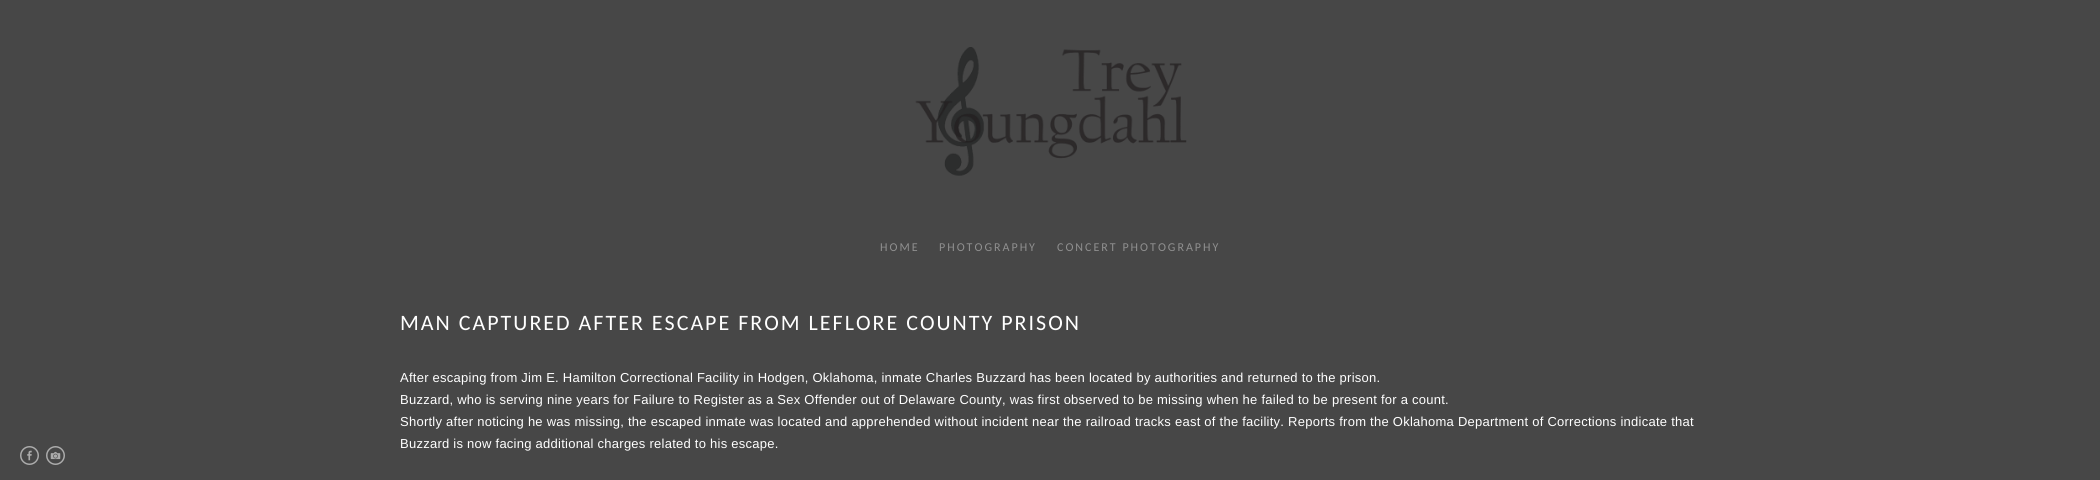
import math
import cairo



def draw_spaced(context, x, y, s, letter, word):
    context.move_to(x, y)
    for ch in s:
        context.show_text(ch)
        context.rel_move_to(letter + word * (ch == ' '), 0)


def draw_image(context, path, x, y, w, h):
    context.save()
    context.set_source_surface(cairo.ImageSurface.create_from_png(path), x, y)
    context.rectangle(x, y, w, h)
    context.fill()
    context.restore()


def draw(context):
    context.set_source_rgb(71 / 255, 71 / 255, 71 / 255)
    context.paint()
    draw_image(context, "images/1.png", 915, 47, 272, 129)
    draw_image(context, "images/2.png", 20, 446, 19, 19)
    draw_image(context, "images/3.png", 46, 446, 19, 19)
    context.select_font_face("Carlito")
    context.set_font_size(12)
    context.set_source_rgb(143 / 255, 143 / 255, 143 / 255)
    draw_spaced(context, 880, 251, "HOME", 2, 0)
    draw_spaced(context, 939, 251, "PHOTOGRAPHY", 2, 0)
    draw_spaced(context, 1057, 251, "CONCERT PHOTOGRAPHY", 2, 0)
    context.set_font_size(22)
    context.set_source_rgb(1, 1, 1)
    draw_spaced(context, 400, 330, "MAN CAPTURED AFTER ESCAPE FROM LEFLORE COUNTY PRISON", 2, 0)
    context.select_font_face("Liberation Sans")
    context.set_font_size(13)
    draw_spaced(context, 400, 382, "After escaping from Jim E. Hamilton Correctional Facility in Hodgen, Oklahoma, inmate Charles Buzzard has been located by authorities and returned to the prison.", 0.25, 0)
    draw_spaced(context, 400, 404, "Buzzard, who is serving nine years for Failure to Register as a Sex Offender out of Delaware County, was first observed to be missing when he failed to be present for a count.", 0.25, 0)
    draw_spaced(context, 400, 426, "Shortly after noticing he was missing, the escaped inmate was located and apprehended without incident near the railroad tracks east of the facility. Reports from the Oklahoma Department of Corrections indicate that", 0.25, 0)
    draw_spaced(context, 400, 448, "Buzzard is now facing additional charges related to his escape.", 0.25, 0)


surface = cairo.ImageSurface(cairo.Format.RGB24, 2100, 480)
context = cairo.Context(surface)
options = cairo.FontOptions()
options.set_hint_metrics(cairo.HintMetrics.OFF)
options.set_hint_style(cairo.HintStyle.NONE)
context.set_font_options(options)
context.set_miter_limit(4)
draw(context)
surface.write_to_png("out.png")
